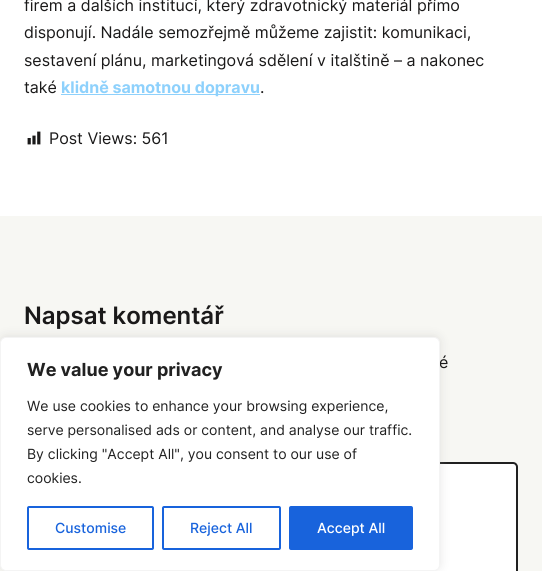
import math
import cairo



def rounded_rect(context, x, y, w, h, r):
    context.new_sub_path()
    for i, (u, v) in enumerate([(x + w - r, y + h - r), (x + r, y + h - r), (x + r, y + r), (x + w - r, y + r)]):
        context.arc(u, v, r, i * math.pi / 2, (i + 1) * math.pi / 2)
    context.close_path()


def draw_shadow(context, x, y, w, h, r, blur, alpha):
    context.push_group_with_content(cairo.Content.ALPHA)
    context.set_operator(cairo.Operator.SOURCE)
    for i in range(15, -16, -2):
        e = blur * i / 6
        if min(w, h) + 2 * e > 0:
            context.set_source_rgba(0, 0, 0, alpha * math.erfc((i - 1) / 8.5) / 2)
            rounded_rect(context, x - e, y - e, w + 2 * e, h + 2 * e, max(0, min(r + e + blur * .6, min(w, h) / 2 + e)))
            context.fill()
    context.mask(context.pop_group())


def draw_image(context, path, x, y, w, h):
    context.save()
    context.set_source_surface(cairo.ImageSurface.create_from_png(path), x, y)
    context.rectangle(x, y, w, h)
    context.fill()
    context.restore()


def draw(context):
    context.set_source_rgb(1, 1, 1)
    context.paint()
    context.set_source_rgb(142 / 255, 209 / 255, 252 / 255)
    context.rectangle(61, 94, 199, 1)
    context.fill()
    draw_image(context, "images/1.png", 27, 131, 14, 14)
    context.set_source_rgb(247 / 255, 247 / 255, 243 / 255)
    context.rectangle(0, 216, 542, 355)
    context.fill()
    context.set_source_rgb(1, 1, 1)
    rounded_rect(context, 25, 463, 492, 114, 4)
    context.fill_preserve()
    context.set_source_rgb(32 / 255, 32 / 255, 32 / 255)
    context.stroke()
    context.set_source_rgb(172 / 255, 171 / 255, 171 / 255)
    draw_shadow(context, 0, 336, 440, 234, 6, 5, 0.3)
    context.select_font_face("Inter")
    context.set_font_size(16)
    context.set_source_rgb(26 / 255, 25 / 255, 25 / 255)
    context.move_to(24, 11)
    context.show_text("firem a dalších institucí, který zdravotnický materiál přímo")
    context.move_to(24, 38)
    context.show_text("disponují. Nadále semozřejmě můžeme zajistit: komunikaci,")
    context.move_to(24, 66)
    context.show_text("sestavení plánu, marketingová sdělení v italštině – a nakonec")
    context.move_to(24, 93)
    context.show_text("také")
    context.select_font_face("Inter", cairo.FontSlant.NORMAL, cairo.FontWeight.BOLD)
    context.set_source_rgb(142 / 255, 209 / 255, 252 / 255)
    context.move_to(61, 93)
    context.show_text("klidně samotnou dopravu")
    context.select_font_face("Inter")
    context.set_source_rgb(26 / 255, 25 / 255, 25 / 255)
    context.move_to(260, 93)
    context.show_text(".")
    context.move_to(49, 144)
    context.show_text("Post Views: 561")
    context.select_font_face("Inter SemiBold")
    context.set_font_size(24)
    context.move_to(24, 324)
    context.show_text("Napsat komentář")
    context.select_font_face("Inter")
    context.set_font_size(16)
    context.move_to(439, 368)
    context.show_text("é")
    context.set_source_rgb(1, 1, 1)
    rounded_rect(context, 0.5, 337.5, 439, 233, 5.5)
    context.fill_preserve()
    context.set_source_rgb(244 / 255, 244 / 255, 244 / 255)
    context.set_line_width(1)
    context.stroke()
    context.select_font_face("Inter", cairo.FontSlant.NORMAL, cairo.FontWeight.BOLD)
    context.set_font_size(18)
    context.set_source_rgb(33 / 255, 33 / 255, 33 / 255)
    context.move_to(27, 376)
    context.show_text("We value your privacy")
    context.select_font_face("Inter")
    context.set_font_size(14)
    context.move_to(27, 411)
    context.show_text("We use cookies to enhance your browsing experience,")
    context.move_to(27, 435)
    context.show_text("serve personalised ads or content, and analyse our traffic.")
    context.move_to(27, 459)
    context.show_text("By clicking \"Accept All\", you consent to our use of")
    context.move_to(27, 483)
    context.show_text("cookies.")
    rounded_rect(context, 28, 507, 125, 42, 1)
    context.set_source_rgb(24 / 255, 99 / 255, 220 / 255)
    context.set_line_width(2)
    context.stroke()
    context.select_font_face("Inter Medium")
    context.move_to(55, 533)
    context.show_text("Customise")
    rounded_rect(context, 163, 507, 117, 42, 1)
    context.stroke()
    context.move_to(190, 533)
    context.show_text("Reject All")
    rounded_rect(context, 290, 507, 122, 42, 1)
    context.fill_preserve()
    context.stroke()
    context.set_source_rgb(1, 1, 1)
    context.move_to(317, 533)
    context.show_text("Accept All")


surface = cairo.ImageSurface(cairo.Format.RGB24, 542, 571)
context = cairo.Context(surface)
options = cairo.FontOptions()
options.set_hint_metrics(cairo.HintMetrics.OFF)
options.set_hint_style(cairo.HintStyle.NONE)
context.set_font_options(options)
context.set_miter_limit(4)
draw(context)
surface.write_to_png("out.png")
